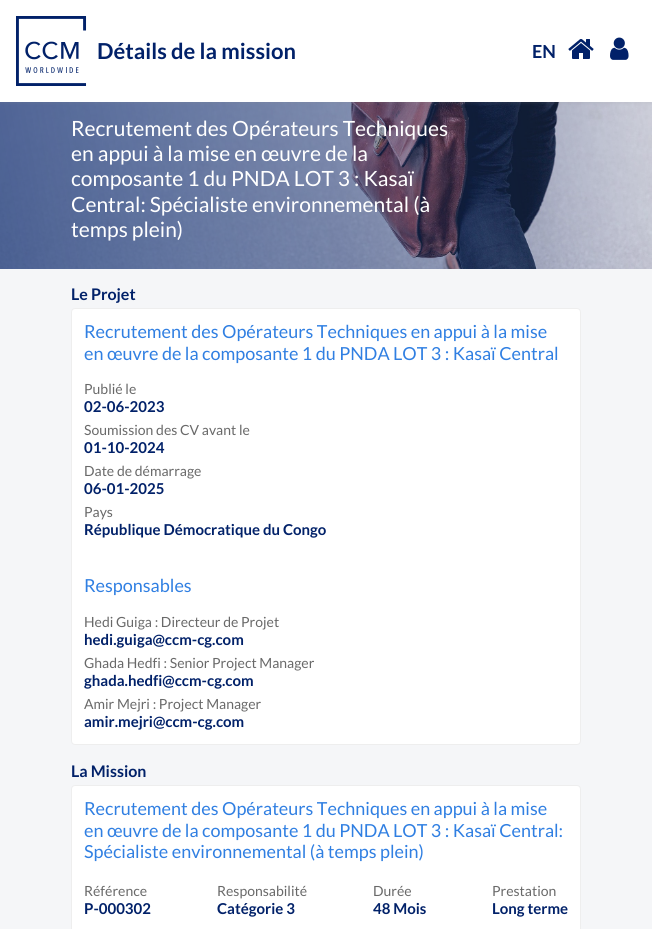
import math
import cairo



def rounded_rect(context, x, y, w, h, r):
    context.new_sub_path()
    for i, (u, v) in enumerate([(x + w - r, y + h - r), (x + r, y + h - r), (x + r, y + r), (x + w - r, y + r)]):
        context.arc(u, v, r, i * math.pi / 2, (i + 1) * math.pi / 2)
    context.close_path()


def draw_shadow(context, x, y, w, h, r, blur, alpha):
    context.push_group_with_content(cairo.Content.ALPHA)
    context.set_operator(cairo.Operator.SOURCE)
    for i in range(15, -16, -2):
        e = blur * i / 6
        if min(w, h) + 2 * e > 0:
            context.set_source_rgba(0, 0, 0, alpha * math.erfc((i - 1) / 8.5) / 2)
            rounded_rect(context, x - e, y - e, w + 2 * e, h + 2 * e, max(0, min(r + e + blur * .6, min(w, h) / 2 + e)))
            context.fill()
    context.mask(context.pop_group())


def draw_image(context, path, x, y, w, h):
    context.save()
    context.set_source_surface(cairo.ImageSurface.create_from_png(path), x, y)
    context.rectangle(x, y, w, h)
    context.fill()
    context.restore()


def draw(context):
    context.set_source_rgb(245 / 255, 246 / 255, 248 / 255)
    context.paint()
    draw_image(context, "images/4.png", 0, 102, 652, 167)
    context.set_source_rgb(142 / 255, 142 / 255, 147 / 255)
    draw_shadow(context, 0, 2, 652, 102, 0, 1, 0.1)
    context.set_source_rgb(1, 1, 1)
    context.rectangle(0, 0, 652, 102)
    context.fill()
    draw_image(context, "images/1.png", 16, 16, 71, 70)
    draw_image(context, "images/2.png", 568, 39, 26, 20)
    draw_image(context, "images/3.png", 610, 37, 19, 23)
    rounded_rect(context, 71.5, 308.5, 509, 436, 3.5)
    context.fill_preserve()
    context.set_source_rgb(238 / 255, 238 / 255, 238 / 255)
    context.set_line_width(1)
    context.stroke()
    context.set_source_rgb(1, 1, 1)
    rounded_rect(context, 71.5, 785.5, 509, 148, 3.5)
    context.fill_preserve()
    context.set_source_rgb(238 / 255, 238 / 255, 238 / 255)
    context.stroke()
    context.select_font_face("Lato", cairo.FontSlant.NORMAL, cairo.FontWeight.BOLD)
    context.set_font_size(22)
    context.set_source_rgb(1 / 255, 33 / 255, 105 / 255)
    context.move_to(97, 59)
    context.show_text("Détails de la mission")
    context.set_font_size(18)
    context.move_to(532, 58)
    context.show_text("EN")
    context.select_font_face("Lato")
    context.set_font_size(21)
    context.set_source_rgb(1, 1, 1)
    context.move_to(71, 136)
    context.show_text("Recrutement des Opérateurs Techniques")
    context.move_to(71, 161)
    context.show_text("en appui à la mise en œuvre de la")
    context.move_to(71, 186)
    context.show_text("composante 1 du PNDA LOT 3 : Kasaï")
    context.move_to(71, 212)
    context.show_text("Central: Spécialiste environnemental (à")
    context.move_to(71, 237)
    context.show_text("temps plein)")
    context.select_font_face("Lato", cairo.FontSlant.NORMAL, cairo.FontWeight.BOLD)
    context.set_font_size(16)
    context.set_source_rgb(1 / 255, 33 / 255, 105 / 255)
    context.move_to(71, 300)
    context.show_text("Le Projet")
    context.select_font_face("Lato")
    context.set_font_size(18)
    context.set_source_rgb(48 / 255, 127 / 255, 226 / 255)
    context.move_to(84, 338)
    context.show_text("Recrutement des Opérateurs Techniques en appui à la mise")
    context.move_to(84, 360)
    context.show_text("en œuvre de la composante 1 du PNDA LOT 3 : Kasaï Central")
    context.set_font_size(14)
    context.set_source_rgb(105 / 255, 105 / 255, 105 / 255)
    context.move_to(84, 394)
    context.show_text("Publié le")
    context.select_font_face("Lato", cairo.FontSlant.NORMAL, cairo.FontWeight.BOLD)
    context.set_font_size(15)
    context.set_source_rgb(1 / 255, 33 / 255, 105 / 255)
    context.move_to(84, 412)
    context.show_text("02-06-2023")
    context.select_font_face("Lato")
    context.set_font_size(14)
    context.set_source_rgb(105 / 255, 105 / 255, 105 / 255)
    context.move_to(84, 435)
    context.show_text("Soumission des CV avant le")
    context.select_font_face("Lato", cairo.FontSlant.NORMAL, cairo.FontWeight.BOLD)
    context.set_font_size(15)
    context.set_source_rgb(1 / 255, 33 / 255, 105 / 255)
    context.move_to(84, 453)
    context.show_text("01-10-2024")
    context.select_font_face("Lato")
    context.set_font_size(14)
    context.set_source_rgb(105 / 255, 105 / 255, 105 / 255)
    context.move_to(84, 476)
    context.show_text("Date de démarrage")
    context.select_font_face("Lato", cairo.FontSlant.NORMAL, cairo.FontWeight.BOLD)
    context.set_font_size(15)
    context.set_source_rgb(1 / 255, 33 / 255, 105 / 255)
    context.move_to(84, 494)
    context.show_text("06-01-2025")
    context.select_font_face("Lato")
    context.set_font_size(14)
    context.set_source_rgb(105 / 255, 105 / 255, 105 / 255)
    context.move_to(84, 517)
    context.show_text("Pays")
    context.select_font_face("Lato", cairo.FontSlant.NORMAL, cairo.FontWeight.BOLD)
    context.set_font_size(15)
    context.set_source_rgb(1 / 255, 33 / 255, 105 / 255)
    context.move_to(84, 535)
    context.show_text("République Démocratique du Congo")
    context.select_font_face("Lato")
    context.set_font_size(18)
    context.set_source_rgb(48 / 255, 127 / 255, 226 / 255)
    context.move_to(84, 592)
    context.show_text("Responsables")
    context.set_font_size(14)
    context.set_source_rgb(105 / 255, 105 / 255, 105 / 255)
    context.move_to(84, 627)
    context.show_text("Hedi Guiga : Directeur de Projet")
    context.select_font_face("Lato", cairo.FontSlant.NORMAL, cairo.FontWeight.BOLD)
    context.set_font_size(15)
    context.set_source_rgb(1 / 255, 33 / 255, 105 / 255)
    context.move_to(84, 645)
    context.show_text("hedi.guiga@ccm-cg.com")
    context.select_font_face("Lato")
    context.set_font_size(14)
    context.set_source_rgb(105 / 255, 105 / 255, 105 / 255)
    context.move_to(84, 668)
    context.show_text("Ghada Hedfi : Senior Project Manager")
    context.select_font_face("Lato", cairo.FontSlant.NORMAL, cairo.FontWeight.BOLD)
    context.set_font_size(15)
    context.set_source_rgb(1 / 255, 33 / 255, 105 / 255)
    context.move_to(84, 686)
    context.show_text("ghada.hedfi@ccm-cg.com")
    context.select_font_face("Lato")
    context.set_font_size(14)
    context.set_source_rgb(105 / 255, 105 / 255, 105 / 255)
    context.move_to(84, 709)
    context.show_text("Amir Mejri : Project Manager")
    context.select_font_face("Lato", cairo.FontSlant.NORMAL, cairo.FontWeight.BOLD)
    context.set_font_size(15)
    context.set_source_rgb(1 / 255, 33 / 255, 105 / 255)
    context.move_to(84, 727)
    context.show_text("amir.mejri@ccm-cg.com")
    context.set_font_size(16)
    context.move_to(71, 777)
    context.show_text("La Mission")
    context.select_font_face("Lato")
    context.set_font_size(18)
    context.set_source_rgb(48 / 255, 127 / 255, 226 / 255)
    context.move_to(84, 815)
    context.show_text("Recrutement des Opérateurs Techniques en appui à la mise")
    context.move_to(84, 837)
    context.show_text("en œuvre de la composante 1 du PNDA LOT 3 : Kasaï Central:")
    context.move_to(84, 858)
    context.show_text("Spécialiste environnemental (à temps plein)")
    context.set_font_size(14)
    context.set_source_rgb(105 / 255, 105 / 255, 105 / 255)
    context.move_to(84, 896)
    context.show_text("Référence")
    context.select_font_face("Lato", cairo.FontSlant.NORMAL, cairo.FontWeight.BOLD)
    context.set_font_size(15)
    context.set_source_rgb(1 / 255, 33 / 255, 105 / 255)
    context.move_to(84, 914)
    context.show_text("P-000302")
    context.select_font_face("Lato")
    context.set_font_size(14)
    context.set_source_rgb(105 / 255, 105 / 255, 105 / 255)
    context.move_to(217, 896)
    context.show_text("Responsabilité")
    context.select_font_face("Lato", cairo.FontSlant.NORMAL, cairo.FontWeight.BOLD)
    context.set_font_size(15)
    context.set_source_rgb(1 / 255, 33 / 255, 105 / 255)
    context.move_to(217, 914)
    context.show_text("Catégorie 3")
    context.select_font_face("Lato")
    context.set_font_size(14)
    context.set_source_rgb(105 / 255, 105 / 255, 105 / 255)
    context.move_to(373, 896)
    context.show_text("Durée")
    context.select_font_face("Lato", cairo.FontSlant.NORMAL, cairo.FontWeight.BOLD)
    context.set_font_size(15)
    context.set_source_rgb(1 / 255, 33 / 255, 105 / 255)
    context.move_to(373, 914)
    context.show_text("48 Mois")
    context.select_font_face("Lato")
    context.set_font_size(14)
    context.set_source_rgb(105 / 255, 105 / 255, 105 / 255)
    context.move_to(492, 896)
    context.show_text("Prestation")
    context.select_font_face("Lato", cairo.FontSlant.NORMAL, cairo.FontWeight.BOLD)
    context.set_font_size(15)
    context.set_source_rgb(1 / 255, 33 / 255, 105 / 255)
    context.move_to(492, 914)
    context.show_text("Long terme")


surface = cairo.ImageSurface(cairo.Format.RGB24, 652, 929)
context = cairo.Context(surface)
options = cairo.FontOptions()
options.set_hint_metrics(cairo.HintMetrics.OFF)
options.set_hint_style(cairo.HintStyle.NONE)
context.set_font_options(options)
context.set_miter_limit(4)
draw(context)
surface.write_to_png("out.png")
